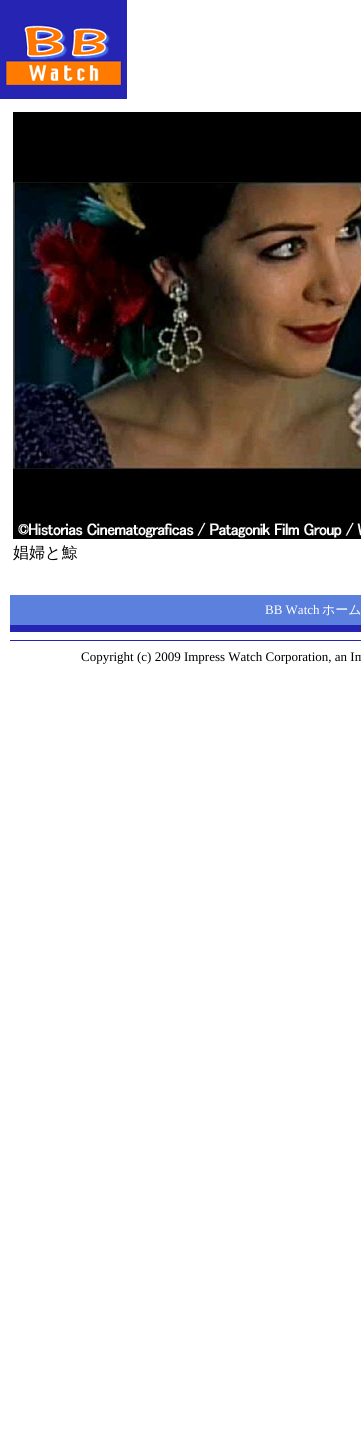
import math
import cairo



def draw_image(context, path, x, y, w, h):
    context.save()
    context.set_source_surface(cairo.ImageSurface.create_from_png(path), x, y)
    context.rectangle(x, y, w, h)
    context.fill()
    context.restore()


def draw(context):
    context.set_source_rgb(1, 1, 1)
    context.paint()
    draw_image(context, "images/1.png", 0, 0, 127, 99)
    draw_image(context, "images/2.png", 13, 112, 348, 427)
    context.set_source_rgb(91 / 255, 128 / 255, 221 / 255)
    context.rectangle(10, 595, 351, 30)
    context.fill()
    context.set_source_rgb(38 / 255, 36 / 255, 179 / 255)
    context.rectangle(10, 625, 351, 7)
    context.fill()
    context.rectangle(10, 640, 351, 1)
    context.fill()
    context.select_font_face("WenQuanYi Zen Hei Medium")
    context.set_font_size(16)
    context.set_source_rgb(0, 0, 0)
    context.move_to(13, 558)
    context.show_text("娼婦と鯨")
    context.select_font_face("Liberation Serif")
    context.set_font_size(13)
    context.set_source_rgb(1, 1, 1)
    context.move_to(265, 614)
    context.show_text("BB Watch")
    context.select_font_face("WenQuanYi Zen Hei Medium")
    context.move_to(322, 614)
    context.show_text("ホーム")
    context.select_font_face("Liberation Serif")
    context.set_source_rgb(0, 0, 0)
    context.move_to(81, 661)
    context.show_text("Copyright (c) 2009 Impress Watch Corporation, an Im")


surface = cairo.ImageSurface(cairo.Format.RGB24, 361, 1444)
context = cairo.Context(surface)
options = cairo.FontOptions()
options.set_hint_metrics(cairo.HintMetrics.OFF)
options.set_hint_style(cairo.HintStyle.NONE)
context.set_font_options(options)
context.set_miter_limit(4)
draw(context)
surface.write_to_png("out.png")
